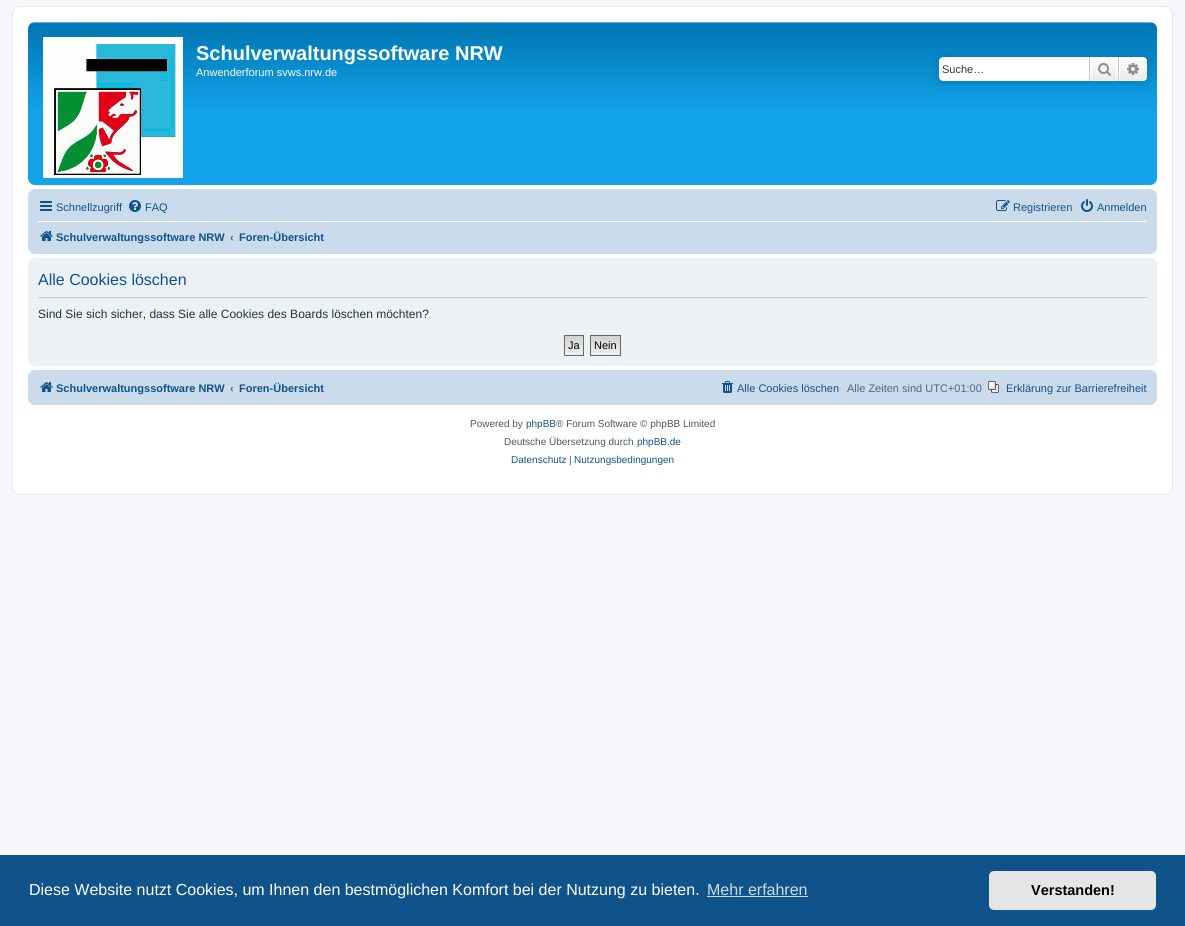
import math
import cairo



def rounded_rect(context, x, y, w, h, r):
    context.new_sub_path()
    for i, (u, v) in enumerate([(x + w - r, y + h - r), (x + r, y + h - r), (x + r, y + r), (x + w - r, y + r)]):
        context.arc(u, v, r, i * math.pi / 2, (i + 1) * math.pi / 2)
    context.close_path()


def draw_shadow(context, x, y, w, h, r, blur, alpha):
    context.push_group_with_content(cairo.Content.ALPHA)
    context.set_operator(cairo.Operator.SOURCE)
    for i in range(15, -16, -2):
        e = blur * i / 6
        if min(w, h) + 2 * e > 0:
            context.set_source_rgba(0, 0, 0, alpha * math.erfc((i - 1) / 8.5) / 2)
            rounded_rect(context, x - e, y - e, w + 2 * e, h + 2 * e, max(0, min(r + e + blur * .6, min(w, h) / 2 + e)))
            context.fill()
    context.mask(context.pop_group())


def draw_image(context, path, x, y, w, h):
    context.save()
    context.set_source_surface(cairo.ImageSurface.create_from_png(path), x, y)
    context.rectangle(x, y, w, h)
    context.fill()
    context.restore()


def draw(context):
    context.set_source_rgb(245 / 255, 247 / 255, 250 / 255)
    context.paint()
    context.set_source_rgb(1, 1, 1)
    rounded_rect(context, 12.5, 6.5, 1160, 488, 7.5)
    context.fill_preserve()
    context.set_source_rgb(230 / 255, 233 / 255, 237 / 255)
    context.set_line_width(1)
    context.stroke()
    gradient = cairo.LinearGradient(593, 22, 593, 185)
    gradient.add_color_stop_rgba(0, 106 / 255, 206 / 255, 1, 1)
    gradient.add_color_stop_rgba(0.01, 0, 118 / 255, 177 / 255, 1)
    gradient.add_color_stop_rgba(0.56, 18 / 255, 163 / 255, 235 / 255, 1)
    gradient.add_color_stop_rgba(1, 18 / 255, 163 / 255, 235 / 255, 1)
    context.set_source(gradient)
    rounded_rect(context, 28, 22, 1129, 163, 7)
    context.fill()
    draw_image(context, "images/1.png", 43, 37, 140, 141)
    context.set_source_rgb(0, 117 / 255, 176 / 255)
    draw_shadow(context, 939, 57, 208, 24, 4, 5, 1)
    context.set_source_rgb(1, 1, 1)
    context.new_path()
    context.move_to(943, 57)
    context.line_to(1089, 57)
    context.line_to(1089, 81)
    context.line_to(943, 81)
    context.curve_to(941, 81, 939, 79, 939, 77)
    context.line_to(939, 61)
    context.curve_to(939, 59, 941, 57, 943, 57)
    context.close_path()
    context.fill()
    gradient = cairo.LinearGradient(1104, 57, 1104, 81)
    gradient.add_color_stop_rgba(0, 1, 1, 1, 1)
    gradient.add_color_stop_rgba(1, 233 / 255, 233 / 255, 233 / 255, 1)
    context.set_source(gradient)
    context.rectangle(1091, 58, 26, 22)
    context.fill()
    context.rectangle(1090.5, 57.5, 27, 23)
    context.set_source_rgb(1, 1, 1)
    context.stroke()
    context.set_source_rgb(199 / 255, 195 / 255, 191 / 255)
    context.rectangle(1118, 57, 1, 24)
    context.fill()
    context.rectangle(1089, 57, 1, 24)
    context.fill()
    draw_image(context, "images/2.png", 1098, 63, 13, 13)
    gradient = cairo.LinearGradient(1133, 57, 1133, 81)
    gradient.add_color_stop_rgba(0, 1, 1, 1, 1)
    gradient.add_color_stop_rgba(1, 233 / 255, 233 / 255, 233 / 255, 1)
    context.set_source(gradient)
    context.new_path()
    context.move_to(1119.5, 57.5)
    context.line_to(1143, 57.5)
    context.curve_to(1145, 57.5, 1146.5, 59, 1146.5, 61)
    context.line_to(1146.5, 77)
    context.curve_to(1146.5, 79, 1145, 80.5, 1143, 80.5)
    context.line_to(1119.5, 80.5)
    context.close_path()
    context.fill_preserve()
    context.set_source_rgb(1, 1, 1)
    context.stroke()
    draw_image(context, "images/3.png", 1127, 63, 12, 12)
    context.set_source_rgb(202 / 255, 220 / 255, 235 / 255)
    rounded_rect(context, 28, 189, 1129, 65, 7)
    context.fill()
    draw_image(context, "images/4.png", 40, 201, 12, 10)
    draw_image(context, "images/5.png", 129, 200, 12, 12)
    draw_image(context, "images/6.png", 996, 200, 14, 11)
    draw_image(context, "images/7.png", 1081, 199, 12, 13)
    context.set_source_rgb(1, 1, 1)
    context.rectangle(38, 221, 1109, 1)
    context.fill()
    draw_image(context, "images/8.png", 40, 231, 13, 10)
    context.set_source_rgb(236 / 255, 241 / 255, 243 / 255)
    rounded_rect(context, 28, 258, 1129, 108, 7)
    context.fill()
    context.set_source_rgb(204 / 255, 204 / 255, 204 / 255)
    context.rectangle(38, 297, 1109, 1)
    context.fill()
    gradient = cairo.LinearGradient(574, 336, 574, 355)
    gradient.add_color_stop_rgba(0, 210 / 255, 210 / 255, 210 / 255, 1)
    gradient.add_color_stop_rgba(1, 239 / 255, 239 / 255, 239 / 255, 1)
    context.set_source(gradient)
    context.rectangle(565, 336, 18, 19)
    context.fill()
    context.rectangle(564.5, 335.5, 19, 20)
    context.set_source_rgb(102 / 255, 102 / 255, 102 / 255)
    context.stroke()
    gradient = cairo.LinearGradient(606, 336, 606, 355)
    gradient.add_color_stop_rgba(0, 210 / 255, 210 / 255, 210 / 255, 1)
    gradient.add_color_stop_rgba(1, 239 / 255, 239 / 255, 239 / 255, 1)
    context.set_source(gradient)
    context.rectangle(591, 336, 29, 19)
    context.fill()
    context.rectangle(590.5, 335.5, 30, 20)
    context.set_source_rgb(102 / 255, 102 / 255, 102 / 255)
    context.stroke()
    context.set_source_rgb(202 / 255, 220 / 255, 235 / 255)
    rounded_rect(context, 28, 370, 1129, 35, 7)
    context.fill()
    draw_image(context, "images/8.png", 40, 382, 13, 10)
    draw_image(context, "images/9.png", 722, 381, 11, 12)
    draw_image(context, "images/10.png", 988, 381, 11, 12)
    context.set_source_rgb(15 / 255, 83 / 255, 138 / 255)
    context.rectangle(0, 855, 1185, 71)
    context.fill()
    context.set_source_rgb(207 / 255, 221 / 255, 232 / 255)
    context.rectangle(707, 896, 101, 1)
    context.fill()
    context.set_source_rgb(229 / 255, 229 / 255, 229 / 255)
    rounded_rect(context, 989, 871, 167, 39, 5)
    context.fill()
    context.select_font_face("Liberation Sans", cairo.FontSlant.NORMAL, cairo.FontWeight.BOLD)
    context.set_font_size(20)
    context.set_source_rgb(1, 1, 1)
    context.move_to(196, 60)
    context.show_text("Schulverwaltungssoftware NRW")
    context.select_font_face("Liberation Sans")
    context.set_font_size(11)
    context.move_to(196, 76)
    context.show_text("Anwenderforum svws.nrw.de")
    context.set_source_rgb(51 / 255, 51 / 255, 51 / 255)
    context.move_to(942, 73)
    context.show_text("Suche…")
    context.set_source_rgb(16 / 255, 82 / 255, 137 / 255)
    context.move_to(56, 211)
    context.show_text("Schnellzugriff")
    context.move_to(145, 211)
    context.show_text("FAQ")
    context.move_to(1013, 211)
    context.show_text("Registrieren")
    context.move_to(1097, 211)
    context.show_text("Anmelden")
    context.select_font_face("Liberation Sans", cairo.FontSlant.NORMAL, cairo.FontWeight.BOLD)
    context.move_to(56, 241)
    context.show_text("Schulverwaltungssoftware NRW")
    context.set_source_rgb(83 / 255, 100 / 255, 130 / 255)
    context.move_to(230, 241)
    context.show_text("‹")
    context.set_source_rgb(16 / 255, 82 / 255, 137 / 255)
    context.move_to(239, 241)
    context.show_text("Foren-Übersicht")
    context.select_font_face("Liberation Sans")
    context.set_font_size(16)
    context.set_source_rgb(17 / 255, 80 / 255, 152 / 255)
    context.move_to(38, 285)
    context.show_text("Alle Cookies löschen")
    context.set_font_size(12)
    context.set_source_rgb(40 / 255, 49 / 255, 63 / 255)
    context.move_to(38, 318)
    context.show_text("Sind Sie sich sicher, dass Sie alle Cookies des Boards löschen möchten?")
    context.set_font_size(11)
    context.set_source_rgb(0, 0, 0)
    context.move_to(568, 349)
    context.show_text("Ja")
    context.move_to(594, 349)
    context.show_text("Nein")
    context.select_font_face("Liberation Sans", cairo.FontSlant.NORMAL, cairo.FontWeight.BOLD)
    context.set_source_rgb(16 / 255, 82 / 255, 137 / 255)
    context.move_to(56, 392)
    context.show_text("Schulverwaltungssoftware NRW")
    context.set_source_rgb(83 / 255, 100 / 255, 130 / 255)
    context.move_to(230, 392)
    context.show_text("‹")
    context.set_source_rgb(16 / 255, 82 / 255, 137 / 255)
    context.move_to(239, 392)
    context.show_text("Foren-Übersicht")
    context.select_font_face("Liberation Sans")
    context.move_to(737, 392)
    context.show_text("Alle Cookies löschen")
    context.set_source_rgb(83 / 255, 100 / 255, 130 / 255)
    context.move_to(847, 392)
    context.show_text("Alle Zeiten sind UTC+01:00")
    context.set_source_rgb(16 / 255, 82 / 255, 137 / 255)
    context.move_to(1006, 392)
    context.show_text("Erklärung zur Barrierefreiheit")
    context.set_font_size(10)
    context.set_source_rgb(85 / 255, 85 / 255, 85 / 255)
    context.move_to(470, 427)
    context.show_text("Powered by")
    context.set_source_rgb(16 / 255, 82 / 255, 137 / 255)
    context.move_to(526, 427)
    context.show_text("phpBB")
    context.set_source_rgb(85 / 255, 85 / 255, 85 / 255)
    context.move_to(556, 427)
    context.show_text("® Forum Software © phpBB Limited")
    context.move_to(504, 445)
    context.show_text("Deutsche Übersetzung durch")
    context.set_source_rgb(16 / 255, 82 / 255, 137 / 255)
    context.move_to(637, 445)
    context.show_text("phpBB.de")
    context.move_to(511, 463)
    context.show_text("Datenschutz")
    context.set_source_rgb(85 / 255, 85 / 255, 85 / 255)
    context.move_to(569, 463)
    context.show_text("|")
    context.set_source_rgb(16 / 255, 82 / 255, 137 / 255)
    context.move_to(574, 463)
    context.show_text("Nutzungsbedingungen")
    context.set_font_size(16)
    context.set_source_rgb(1, 1, 1)
    context.move_to(29, 895)
    context.show_text("Diese Website nutzt Cookies, um Ihnen den bestmöglichen Komfort bei der Nutzung zu bieten.")
    context.set_source_rgb(207 / 255, 221 / 255, 232 / 255)
    context.move_to(707, 895)
    context.show_text("Mehr erfahren")
    context.select_font_face("Liberation Sans", cairo.FontSlant.NORMAL, cairo.FontWeight.BOLD)
    context.set_font_size(14.5)
    context.set_source_rgb(0, 0, 0)
    context.move_to(1031, 895)
    context.show_text("Verstanden!")


surface = cairo.ImageSurface(cairo.Format.RGB24, 1185, 926)
context = cairo.Context(surface)
options = cairo.FontOptions()
options.set_hint_metrics(cairo.HintMetrics.OFF)
options.set_hint_style(cairo.HintStyle.NONE)
context.set_font_options(options)
context.set_miter_limit(4)
draw(context)
surface.write_to_png("out.png")
